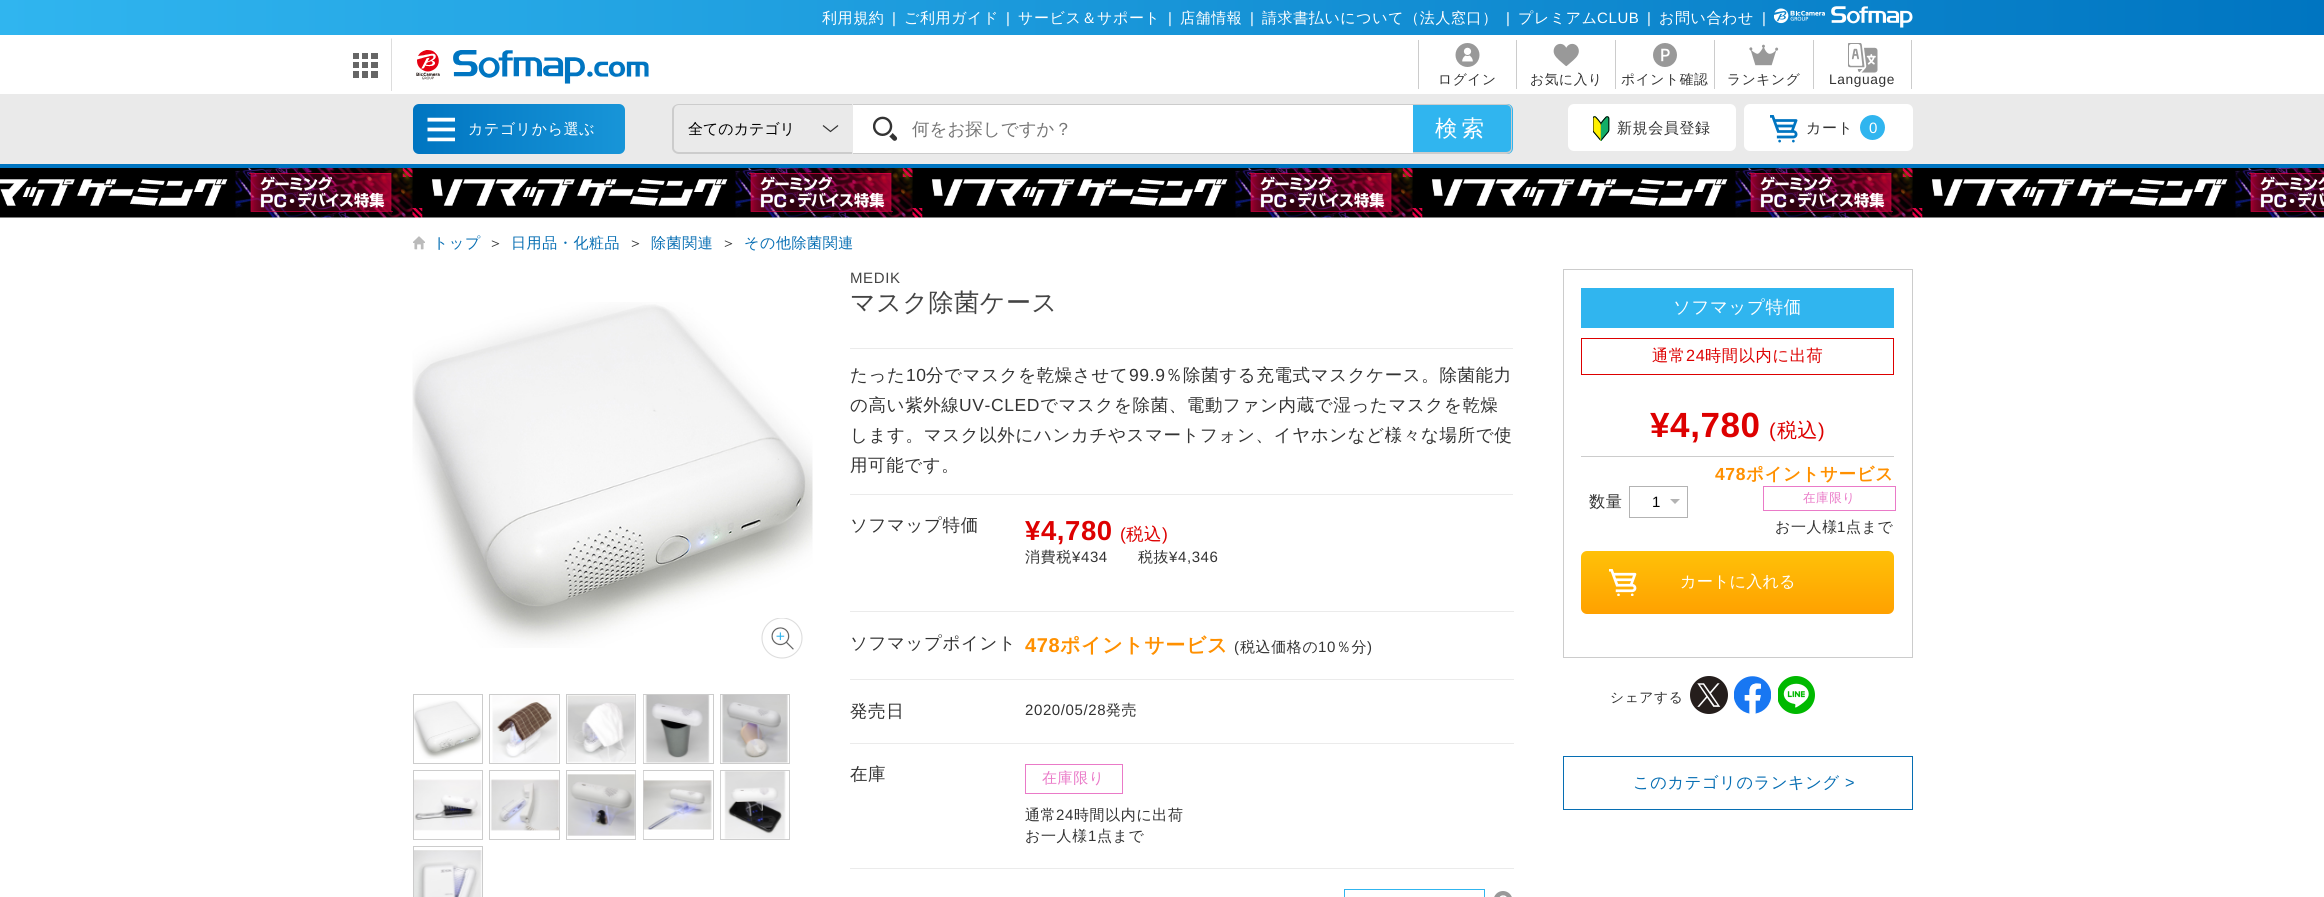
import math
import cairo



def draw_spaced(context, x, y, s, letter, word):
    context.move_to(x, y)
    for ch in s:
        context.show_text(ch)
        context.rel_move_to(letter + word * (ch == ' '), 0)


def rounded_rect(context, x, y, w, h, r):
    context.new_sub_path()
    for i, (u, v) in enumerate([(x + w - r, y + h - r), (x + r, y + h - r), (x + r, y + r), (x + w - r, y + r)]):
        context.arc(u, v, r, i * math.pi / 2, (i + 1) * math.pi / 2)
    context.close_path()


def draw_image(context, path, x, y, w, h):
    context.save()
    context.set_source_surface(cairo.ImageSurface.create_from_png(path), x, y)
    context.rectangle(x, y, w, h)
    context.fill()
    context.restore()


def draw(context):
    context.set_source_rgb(1, 1, 1)
    context.paint()
    gradient = cairo.LinearGradient(0, 18, 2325, 17)
    gradient.add_color_stop_rgba(0, 48 / 255, 181 / 255, 239 / 255, 1)
    gradient.add_color_stop_rgba(1, 0, 117 / 255, 193 / 255, 1)
    context.set_source(gradient)
    context.rectangle(0, 0, 2324, 35)
    context.fill()
    draw_image(context, "images/1.png", 1774, 6, 139, 22)
    context.set_source_rgb(221 / 255, 221 / 255, 221 / 255)
    context.new_path()
    context.move_to(392, 38)
    context.line_to(392, 91)
    context.line_to(391, 91)
    context.line_to(391, 39)
    context.close_path()
    context.fill()
    draw_image(context, "images/2.png", 353, 53, 25, 25)
    draw_image(context, "images/3.png", 416, 50, 233, 34)
    context.set_source_rgb(204 / 255, 204 / 255, 204 / 255)
    context.rectangle(1911, 40, 1, 49)
    context.fill()
    context.rectangle(1418, 40, 1, 49)
    context.fill()
    draw_image(context, "images/4.png", 1455, 43, 25, 24)
    context.rectangle(1516, 40, 1, 49)
    context.fill()
    draw_image(context, "images/5.png", 1553, 43, 26, 24)
    context.rectangle(1615, 40, 1, 49)
    context.fill()
    draw_image(context, "images/6.png", 1653, 43, 24, 24)
    context.rectangle(1714, 40, 1, 49)
    context.fill()
    draw_image(context, "images/7.png", 1749, 44, 30, 22)
    context.rectangle(1813, 40, 1, 49)
    context.fill()
    draw_image(context, "images/8.png", 1848, 43, 30, 30)
    context.set_source_rgb(234 / 255, 234 / 255, 234 / 255)
    context.rectangle(0, 94, 2324, 70)
    context.fill()
    context.set_source_rgb(0, 117 / 255, 193 / 255)
    context.rectangle(0, 164, 2324, 4)
    context.fill()
    gradient = cairo.LinearGradient(625, 129, 413, 129)
    gradient.add_color_stop_rgba(0, 24 / 255, 149 / 255, 216 / 255, 1)
    gradient.add_color_stop_rgba(1, 0, 117 / 255, 193 / 255, 1)
    context.set_source(gradient)
    rounded_rect(context, 413, 104, 212, 50, 6)
    context.fill()
    draw_image(context, "images/9.png", 427, 117, 28, 25)
    context.new_path()
    context.move_to(838, 125.5)
    context.line_to(830.5, 131.5)
    context.line_to(823, 125.5)
    context.set_source_rgb(51 / 255, 51 / 255, 51 / 255)
    context.set_line_width(1.2)
    context.stroke()
    context.set_source_rgb(204 / 255, 204 / 255, 204 / 255)
    context.set_fill_rule(cairo.FillRule.EVEN_ODD)
    context.new_path()
    context.move_to(679, 104)
    context.line_to(852, 104)
    context.line_to(852, 154)
    context.line_to(679, 154)
    context.curve_to(675, 154, 672, 151, 672, 148)
    context.line_to(672, 110)
    context.curve_to(672, 107, 675, 104, 679, 104)
    context.close_path()
    context.move_to(679, 105)
    context.line_to(852, 105)
    context.line_to(852, 152)
    context.line_to(679, 152)
    context.curve_to(676, 152, 674, 150, 674, 148)
    context.line_to(674, 110)
    context.curve_to(674, 107, 676, 105, 679, 105)
    context.close_path()
    context.fill()
    context.set_source_rgb(48 / 255, 181 / 255, 239 / 255)
    context.new_path()
    context.move_to(1413, 104)
    context.line_to(1507, 104)
    context.curve_to(1510.5, 104, 1513, 106.5, 1513, 110)
    context.line_to(1513, 148)
    context.curve_to(1513, 151.5, 1510.5, 154, 1507, 154)
    context.line_to(1413, 154)
    context.close_path()
    context.fill()
    context.set_source_rgb(204 / 255, 204 / 255, 204 / 255)
    context.new_path()
    context.move_to(1412, 104)
    context.line_to(1506, 104)
    context.curve_to(1510, 104, 1512, 107, 1512, 110)
    context.line_to(1512, 148)
    context.curve_to(1512, 151, 1510, 154, 1506, 154)
    context.line_to(1412, 154)
    context.close_path()
    context.move_to(1412, 105)
    context.line_to(1506, 105)
    context.curve_to(1509, 105, 1511, 107, 1511, 110)
    context.line_to(1511, 148)
    context.curve_to(1511, 150, 1509, 152, 1506, 152)
    context.line_to(1412, 152)
    context.close_path()
    context.fill()
    context.set_source_rgb(1, 1, 1)
    context.rectangle(853, 105, 560, 48)
    context.fill()
    draw_image(context, "images/10.png", 873, 116, 25, 25)
    context.set_source_rgb(204 / 255, 204 / 255, 204 / 255)
    context.rectangle(853, 104, 560, 1)
    context.fill()
    context.rectangle(853, 153, 560, 1)
    context.fill()
    context.set_source_rgb(1, 1, 1)
    rounded_rect(context, 1568, 104, 168, 47, 6)
    context.fill()
    draw_image(context, "images/11.png", 1593, 116, 17, 25)
    rounded_rect(context, 1744, 104, 169, 47, 6)
    context.fill()
    draw_image(context, "images/12.png", 1770, 115, 28, 28)
    context.set_source_rgb(48 / 255, 181 / 255, 239 / 255)
    context.arc(1872.5, 127.5, 12.5, 0, 2 * math.pi)
    context.fill()
    draw_image(context, "images/13.png", 0, 168, 2324, 50)
    draw_image(context, "images/14.png", 413, 236, 12, 14)
    draw_image(context, "images/15.png", 412, 302, 401, 346)
    draw_image(context, "images/16.png", 761, 618, 42, 41)
    context.rectangle(413.5, 694.5, 69, 69)
    context.set_source_rgb(204 / 255, 204 / 255, 204 / 255)
    context.set_line_width(1)
    context.stroke()
    draw_image(context, "images/17.png", 414, 700, 68, 59)
    context.rectangle(489.5, 694.5, 70, 69)
    context.stroke()
    draw_image(context, "images/18.png", 492, 695, 66, 68)
    context.rectangle(566.5, 694.5, 69, 69)
    context.stroke()
    draw_image(context, "images/19.png", 567, 695, 69, 68)
    context.rectangle(643.5, 694.5, 70, 69)
    context.stroke()
    draw_image(context, "images/20.png", 643, 695, 67, 68)
    context.rectangle(720.5, 694.5, 69, 69)
    context.stroke()
    draw_image(context, "images/21.png", 720, 695, 68, 68)
    context.rectangle(413.5, 770.5, 69, 69)
    context.stroke()
    draw_image(context, "images/22.png", 414, 779, 68, 52)
    context.rectangle(489.5, 770.5, 70, 69)
    context.stroke()
    draw_image(context, "images/23.png", 490, 779, 69, 52)
    context.rectangle(566.5, 770.5, 69, 69)
    context.stroke()
    draw_image(context, "images/24.png", 567, 771, 69, 68)
    context.rectangle(643.5, 770.5, 70, 69)
    context.stroke()
    draw_image(context, "images/25.png", 643, 771, 69, 68)
    context.rectangle(720.5, 770.5, 69, 69)
    context.stroke()
    draw_image(context, "images/26.png", 720, 771, 66, 68)
    context.rectangle(413.5, 846.5, 69, 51)
    context.stroke()
    draw_image(context, "images/27.png", 414, 850, 68, 47)
    context.set_source_rgb(235 / 255, 235 / 255, 235 / 255)
    context.rectangle(850, 348, 663, 1)
    context.fill()
    context.rectangle(850, 494, 663, 1)
    context.fill()
    context.rectangle(850, 611, 664, 1)
    context.fill()
    context.rectangle(850, 679, 664, 1)
    context.fill()
    context.rectangle(850, 743, 664, 1)
    context.fill()
    context.rectangle(850, 868, 664, 1)
    context.fill()
    context.rectangle(1025.5, 764.5, 97, 29)
    context.set_source_rgb(234 / 255, 122 / 255, 200 / 255)
    context.stroke()
    context.rectangle(1344.5, 889.5, 140, 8)
    context.set_source_rgb(48 / 255, 181 / 255, 239 / 255)
    context.stroke()
    draw_image(context, "images/28.png", 1494, 891, 18, 6)
    context.rectangle(1563.5, 269.5, 349, 388)
    context.set_source_rgb(204 / 255, 204 / 255, 204 / 255)
    context.stroke()
    context.set_source_rgb(48 / 255, 181 / 255, 239 / 255)
    context.rectangle(1581, 288, 313, 40)
    context.fill()
    context.rectangle(1581.5, 338.5, 312, 36)
    context.set_source_rgb(221 / 255, 0, 0)
    context.stroke()
    context.set_source_rgb(204 / 255, 204 / 255, 204 / 255)
    context.rectangle(1581, 456, 313, 1)
    context.fill()
    context.set_source_rgb(179 / 255, 179 / 255, 179 / 255)
    context.set_fill_rule(cairo.FillRule.WINDING)
    context.new_path()
    context.move_to(1675, 504)
    context.line_to(1670, 499)
    context.line_to(1680, 499)
    context.close_path()
    context.fill()
    context.rectangle(1629.5, 486.5, 58, 31)
    context.stroke()
    context.rectangle(1763.5, 486.5, 132, 24)
    context.set_source_rgb(234 / 255, 122 / 255, 200 / 255)
    context.stroke()
    gradient = cairo.LinearGradient(1738, 551, 1738, 614)
    gradient.add_color_stop_rgba(0, 1, 193 / 255, 8 / 255, 1)
    gradient.add_color_stop_rgba(1, 1, 161 / 255, 0, 1)
    context.set_source(gradient)
    rounded_rect(context, 1581, 551, 313, 63, 6)
    context.fill()
    draw_image(context, "images/29.png", 1609, 569, 28, 27)
    draw_image(context, "images/30.png", 1690, 676, 38, 38)
    draw_image(context, "images/31.png", 1734, 676, 37, 38)
    draw_image(context, "images/32.png", 1778, 676, 37, 38)
    context.rectangle(1563.5, 756.5, 349, 53)
    context.set_source_rgb(6 / 255, 110 / 255, 179 / 255)
    context.stroke()
    context.select_font_face("WenQuanYi Zen Hei Medium")
    context.set_font_size(15)
    context.set_source_rgb(1, 1, 1)
    draw_spaced(context, 822, 23, "利用規約", 0.6, 0)
    context.select_font_face("Liberation Sans")
    draw_spaced(context, 892, 23, "|", 0.6, 0)
    context.select_font_face("WenQuanYi Zen Hei Medium")
    draw_spaced(context, 904, 23, "ご利用ガイド", 0.6, 0)
    context.select_font_face("Liberation Sans")
    draw_spaced(context, 1006, 23, "|", 0.6, 0)
    context.select_font_face("WenQuanYi Zen Hei Medium")
    draw_spaced(context, 1018, 23, "サービス＆サポート", 0.6, 0)
    context.select_font_face("Liberation Sans")
    draw_spaced(context, 1168, 23, "|", 0.6, 0)
    context.select_font_face("WenQuanYi Zen Hei Medium")
    draw_spaced(context, 1180, 23, "店舗情報", 0.6, 0)
    context.select_font_face("Liberation Sans")
    draw_spaced(context, 1250, 23, "|", 0.6, 0)
    context.select_font_face("WenQuanYi Zen Hei Medium")
    draw_spaced(context, 1262, 23, "請求書払いについて（法人窓口）", 0.6, 0)
    context.select_font_face("Liberation Sans")
    draw_spaced(context, 1506, 23, "|", 0.6, 0)
    context.select_font_face("WenQuanYi Zen Hei Medium")
    draw_spaced(context, 1518, 23, "プレミアム", 0.6, 0)
    context.select_font_face("Liberation Sans")
    draw_spaced(context, 1597, 23, "CLUB", 0.6, 0)
    draw_spaced(context, 1647, 23, "|", 0.6, 0)
    context.select_font_face("WenQuanYi Zen Hei Medium")
    draw_spaced(context, 1659, 23, "お問い合わせ", 0.6, 0)
    context.select_font_face("Liberation Sans")
    draw_spaced(context, 1762, 23, "|", 0.6, 0)
    context.select_font_face("WenQuanYi Zen Hei Medium")
    context.set_font_size(13.75)
    context.set_source_rgb(51 / 255, 51 / 255, 51 / 255)
    draw_spaced(context, 1438, 84, "ログイン", 0.6, 0)
    draw_spaced(context, 1530, 84, "お気に入り", 0.6, 0)
    draw_spaced(context, 1621, 84, "ポイント確認", 0.6, 0)
    draw_spaced(context, 1727, 84, "ランキング", 0.6, 0)
    context.select_font_face("Liberation Sans")
    draw_spaced(context, 1829, 84, "Language", 0.6, 0)
    context.select_font_face("WenQuanYi Zen Hei Medium")
    context.set_font_size(15)
    context.set_source_rgb(1, 1, 1)
    draw_spaced(context, 468, 134, "カテゴリから選ぶ", 0.6, 0)
    context.set_source_rgb(0, 0, 0)
    context.move_to(688, 134)
    context.show_text("全てのカテゴリ")
    context.set_font_size(17.5)
    context.set_source_rgb(117 / 255, 117 / 255, 117 / 255)
    context.move_to(912, 135)
    context.show_text("何をお探しですか？")
    context.set_font_size(22.5)
    context.set_source_rgb(1, 1, 1)
    draw_spaced(context, 1435, 136, "検索", 4, 0)
    context.set_font_size(15)
    context.set_source_rgb(51 / 255, 51 / 255, 51 / 255)
    draw_spaced(context, 1617, 133, "新規会員登録", 0.6, 0)
    draw_spaced(context, 1806, 133, "カート", 0.6, 0)
    context.select_font_face("Liberation Sans")
    context.set_source_rgb(1, 1, 1)
    draw_spaced(context, 1869, 133, "0", 0.6, 0)
    context.select_font_face("WenQuanYi Zen Hei Medium")
    context.set_source_rgb(6 / 255, 110 / 255, 179 / 255)
    draw_spaced(context, 433, 248, "トップ", 0.6, 0)
    context.set_source_rgb(51 / 255, 51 / 255, 51 / 255)
    draw_spaced(context, 488, 248, "＞", 0.6, 0)
    context.set_source_rgb(6 / 255, 110 / 255, 179 / 255)
    draw_spaced(context, 511, 248, "日用品・化粧品", 0.6, 0)
    context.set_source_rgb(51 / 255, 51 / 255, 51 / 255)
    draw_spaced(context, 628, 248, "＞", 0.6, 0)
    context.set_source_rgb(6 / 255, 110 / 255, 179 / 255)
    draw_spaced(context, 651, 248, "除菌関連", 0.6, 0)
    context.set_source_rgb(51 / 255, 51 / 255, 51 / 255)
    draw_spaced(context, 721, 248, "＞", 0.6, 0)
    context.set_source_rgb(6 / 255, 110 / 255, 179 / 255)
    draw_spaced(context, 744, 248, "その他除菌関連", 0.6, 0)
    context.select_font_face("Liberation Sans")
    context.set_source_rgb(68 / 255, 68 / 255, 68 / 255)
    draw_spaced(context, 850, 283, "MEDIK", 0.6, 0)
    context.select_font_face("WenQuanYi Zen Hei Medium")
    context.set_font_size(25)
    draw_spaced(context, 850, 311, "マスク除菌ケース", 0.6, 0)
    context.set_font_size(17.5)
    context.set_source_rgb(51 / 255, 51 / 255, 51 / 255)
    draw_spaced(context, 850, 381, "たった", 0.6, 0)
    context.select_font_face("Liberation Sans")
    draw_spaced(context, 906, 381, "10", 0.6, 0)
    context.select_font_face("WenQuanYi Zen Hei Medium")
    draw_spaced(context, 926, 381, "分でマスクを乾燥させて", 0.6, 0)
    context.select_font_face("Liberation Sans")
    draw_spaced(context, 1129, 381, "99.9", 0.6, 0)
    context.select_font_face("WenQuanYi Zen Hei Medium")
    draw_spaced(context, 1165, 381, "％除菌する充電式マスクケース。除菌能力", 0.6, 0)
    draw_spaced(context, 850, 411, "の高い紫外線", 0.6, 0)
    context.select_font_face("Liberation Sans")
    draw_spaced(context, 959, 411, "UV-CLED", 0.6, 0)
    context.select_font_face("WenQuanYi Zen Hei Medium")
    draw_spaced(context, 1040, 411, "でマスクを除菌、電動ファン内蔵で湿ったマスクを乾燥", 0.6, 0)
    draw_spaced(context, 850, 441, "します。マスク以外にハンカチやスマートフォン、イヤホンなど様々な場所で使", 0.6, 0)
    draw_spaced(context, 850, 471, "用可能です。", 0.6, 0)
    draw_spaced(context, 850, 531, "ソフマップ特価", 0.6, 0)
    context.select_font_face("Liberation Sans", cairo.FontSlant.NORMAL, cairo.FontWeight.BOLD)
    context.set_font_size(27.5)
    context.set_source_rgb(221 / 255, 0, 0)
    draw_spaced(context, 1025, 540, "¥4,780", 0.6, 0)
    context.select_font_face("Liberation Sans")
    context.set_font_size(17.5)
    draw_spaced(context, 1120, 540, "(", 0.6, 0)
    context.select_font_face("WenQuanYi Zen Hei Medium")
    draw_spaced(context, 1126, 540, "税込", 0.6, 0)
    context.select_font_face("Liberation Sans")
    draw_spaced(context, 1162, 540, ")", 0.6, 0)
    context.select_font_face("WenQuanYi Zen Hei Medium")
    context.set_font_size(15)
    context.set_source_rgb(51 / 255, 51 / 255, 51 / 255)
    draw_spaced(context, 1025, 562, "消費税", 0.6, 0)
    context.select_font_face("Liberation Sans")
    draw_spaced(context, 1072, 562, "¥434", 0.6, 0)
    context.select_font_face("WenQuanYi Zen Hei Medium")
    draw_spaced(context, 1138, 562, "税抜", 0.6, 0)
    context.select_font_face("Liberation Sans")
    draw_spaced(context, 1169, 562, "¥4,346", 0.6, 0)
    context.select_font_face("WenQuanYi Zen Hei Medium")
    context.set_font_size(17.5)
    draw_spaced(context, 850, 649, "ソフマップポイント", 0.6, 0)
    context.select_font_face("Liberation Sans", cairo.FontSlant.NORMAL, cairo.FontWeight.BOLD)
    context.set_font_size(20)
    context.set_source_rgb(1, 144 / 255, 0)
    draw_spaced(context, 1025, 652, "478", 0.6, 0)
    context.select_font_face("WenQuanYi Zen Hei", cairo.FontSlant.NORMAL, cairo.FontWeight.BOLD)
    draw_spaced(context, 1060, 652, "ポイントサービス", 0.6, 0)
    context.select_font_face("Liberation Sans")
    context.set_font_size(15)
    context.set_source_rgb(51 / 255, 51 / 255, 51 / 255)
    draw_spaced(context, 1234, 652, "(", 0.6, 0)
    context.select_font_face("WenQuanYi Zen Hei Medium")
    draw_spaced(context, 1240, 652, "税込価格の", 0.6, 0)
    context.select_font_face("Liberation Sans")
    draw_spaced(context, 1318, 652, "10", 0.6, 0)
    context.select_font_face("WenQuanYi Zen Hei Medium")
    draw_spaced(context, 1336, 652, "％分", 0.6, 0)
    context.select_font_face("Liberation Sans")
    draw_spaced(context, 1367, 652, ")", 0.6, 0)
    context.select_font_face("WenQuanYi Zen Hei Medium")
    context.set_font_size(17.5)
    draw_spaced(context, 850, 717, "発売日", 0.6, 0)
    context.select_font_face("Liberation Sans")
    context.set_font_size(15)
    draw_spaced(context, 1025, 715, "2020/05/28", 0.6, 0)
    context.select_font_face("WenQuanYi Zen Hei Medium")
    draw_spaced(context, 1106, 715, "発売", 0.6, 0)
    context.set_font_size(17.5)
    draw_spaced(context, 850, 780, "在庫", 0.6, 0)
    context.set_font_size(15)
    context.set_source_rgb(234 / 255, 122 / 255, 200 / 255)
    draw_spaced(context, 1042, 783, "在庫限り", 0.6, 0)
    context.set_source_rgb(51 / 255, 51 / 255, 51 / 255)
    draw_spaced(context, 1025, 820, "通常", 0.6, 0)
    context.select_font_face("Liberation Sans")
    draw_spaced(context, 1056, 820, "24", 0.6, 0)
    context.select_font_face("WenQuanYi Zen Hei Medium")
    draw_spaced(context, 1074, 820, "時間以内に出荷", 0.6, 0)
    draw_spaced(context, 1025, 841, "お一人様", 0.6, 0)
    context.select_font_face("Liberation Sans")
    draw_spaced(context, 1088, 841, "1", 0.6, 0)
    context.select_font_face("WenQuanYi Zen Hei Medium")
    draw_spaced(context, 1097, 841, "点まで", 0.6, 0)
    context.set_font_size(17.5)
    context.set_source_rgb(1, 1, 1)
    draw_spaced(context, 1673, 313, "ソフマップ特価", 0.6, 0)
    context.set_font_size(16.25)
    context.set_source_rgb(221 / 255, 0, 0)
    draw_spaced(context, 1652, 361, "通常", 0.6, 0)
    context.select_font_face("Liberation Sans")
    draw_spaced(context, 1686, 361, "24", 0.6, 0)
    context.select_font_face("WenQuanYi Zen Hei Medium")
    draw_spaced(context, 1705, 361, "時間以内に出荷", 0.6, 0)
    context.select_font_face("Liberation Sans", cairo.FontSlant.NORMAL, cairo.FontWeight.BOLD)
    context.set_font_size(35)
    draw_spaced(context, 1650, 437, "¥4,780", 0.6, 0)
    context.select_font_face("Liberation Sans")
    context.set_font_size(20)
    draw_spaced(context, 1769, 437, "(", 0.6, 0)
    context.select_font_face("WenQuanYi Zen Hei Medium")
    draw_spaced(context, 1777, 437, "税込", 0.6, 0)
    context.select_font_face("Liberation Sans")
    draw_spaced(context, 1818, 437, ")", 0.6, 0)
    context.select_font_face("Liberation Sans", cairo.FontSlant.NORMAL, cairo.FontWeight.BOLD)
    context.set_font_size(17.5)
    context.set_source_rgb(1, 144 / 255, 0)
    draw_spaced(context, 1715, 480, "478", 0.6, 0)
    context.select_font_face("WenQuanYi Zen Hei", cairo.FontSlant.NORMAL, cairo.FontWeight.BOLD)
    draw_spaced(context, 1746, 480, "ポイントサービス", 0.6, 0)
    context.select_font_face("WenQuanYi Zen Hei Medium")
    context.set_font_size(16.25)
    context.set_source_rgb(51 / 255, 51 / 255, 51 / 255)
    draw_spaced(context, 1589, 507, "数量", 0.6, 0)
    context.select_font_face("Liberation Sans")
    context.set_font_size(15)
    context.set_source_rgb(0, 0, 0)
    context.move_to(1652, 507)
    context.show_text("1")
    context.select_font_face("WenQuanYi Zen Hei Medium")
    context.set_font_size(12.5)
    context.set_source_rgb(234 / 255, 122 / 255, 200 / 255)
    draw_spaced(context, 1803, 502, "在庫限り", 0.6, 0)
    context.set_font_size(15)
    context.set_source_rgb(51 / 255, 51 / 255, 51 / 255)
    draw_spaced(context, 1775, 532, "お一人様", 0.6, 0)
    context.select_font_face("Liberation Sans")
    draw_spaced(context, 1837, 532, "1", 0.6, 0)
    context.select_font_face("WenQuanYi Zen Hei Medium")
    draw_spaced(context, 1846, 532, "点まで", 0.6, 0)
    context.set_font_size(16.25)
    context.set_source_rgb(1, 1, 1)
    context.move_to(1680, 587)
    context.show_text("カートに入れる")
    context.set_font_size(13.75)
    context.set_source_rgb(51 / 255, 51 / 255, 51 / 255)
    draw_spaced(context, 1610, 702, "シェアする", 0.6, 0)
    context.set_font_size(16.25)
    context.set_source_rgb(6 / 255, 110 / 255, 179 / 255)
    draw_spaced(context, 1633, 788, "このカテゴリのランキング", 0.6, 0)
    context.select_font_face("Liberation Sans")
    draw_spaced(context, 1845, 788, ">", 0.6, 0)


surface = cairo.ImageSurface(cairo.Format.RGB24, 2324, 897)
context = cairo.Context(surface)
options = cairo.FontOptions()
options.set_hint_metrics(cairo.HintMetrics.OFF)
options.set_hint_style(cairo.HintStyle.NONE)
context.set_font_options(options)
context.set_miter_limit(4)
draw(context)
surface.write_to_png("out.png")
